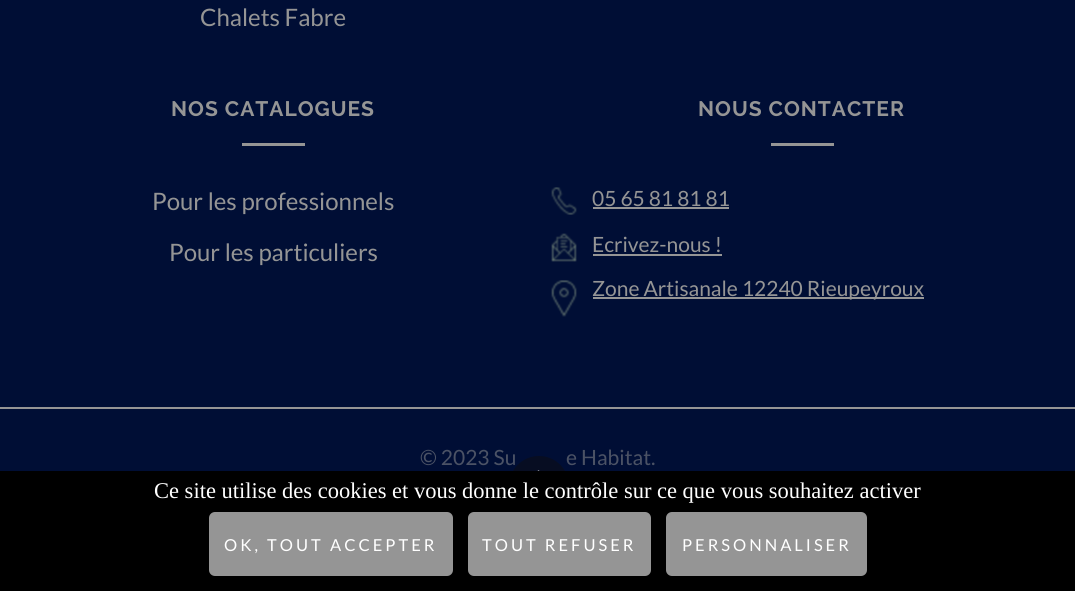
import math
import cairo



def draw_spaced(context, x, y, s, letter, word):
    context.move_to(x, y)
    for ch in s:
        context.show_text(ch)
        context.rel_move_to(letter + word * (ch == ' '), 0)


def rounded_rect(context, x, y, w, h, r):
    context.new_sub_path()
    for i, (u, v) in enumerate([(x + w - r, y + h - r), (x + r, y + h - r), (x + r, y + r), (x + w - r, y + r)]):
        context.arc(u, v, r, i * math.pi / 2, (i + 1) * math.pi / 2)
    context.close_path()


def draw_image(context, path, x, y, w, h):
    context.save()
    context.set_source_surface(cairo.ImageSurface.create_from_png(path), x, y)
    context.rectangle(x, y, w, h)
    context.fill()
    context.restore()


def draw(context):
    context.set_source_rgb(0, 14 / 255, 53 / 255)
    context.paint()
    context.set_source_rgb(149 / 255, 149 / 255, 149 / 255)
    context.rectangle(242, 143, 63, 3)
    context.fill()
    context.rectangle(771, 143, 63, 3)
    context.fill()
    draw_image(context, "images/1.png", 551, 187, 26, 28)
    context.rectangle(593, 207, 136, 2)
    context.fill()
    draw_image(context, "images/2.png", 551, 233, 26, 29)
    context.rectangle(593, 254, 129, 2)
    context.fill()
    draw_image(context, "images/3.png", 551, 280, 26, 37)
    context.rectangle(593, 297, 331, 2)
    context.fill()
    context.rectangle(0, 407, 1075, 2)
    context.fill()
    context.select_font_face("Lato")
    context.set_font_size(24)
    context.move_to(200, 26)
    context.show_text("Chalets Fabre")
    context.select_font_face("Raleway", cairo.FontSlant.NORMAL, cairo.FontWeight.BOLD)
    context.set_font_size(21)
    draw_spaced(context, 171, 116, "NOS CATALOGUES", 1, 0)
    context.select_font_face("Lato")
    context.set_font_size(24)
    context.move_to(152, 210)
    context.show_text("Pour les professionnels")
    context.move_to(169, 261)
    context.show_text("Pour les particuliers")
    context.select_font_face("Raleway", cairo.FontSlant.NORMAL, cairo.FontWeight.BOLD)
    context.set_font_size(21)
    draw_spaced(context, 698, 116, "NOUS CONTACTER", 1, 0)
    context.select_font_face("Lato")
    context.move_to(592, 206)
    context.show_text("05 65 81 81 81")
    context.move_to(592, 252)
    context.show_text("Ecrivez-nous !")
    context.move_to(592, 296)
    context.show_text("Zone Artisanale 12240 Rieupeyroux")
    context.set_source_rgb(75 / 255, 82 / 255, 101 / 255)
    context.move_to(420, 465)
    context.show_text("© 2023 Su")
    context.move_to(566, 465)
    context.show_text("e Habitat.")
    context.set_source_rgb(7 / 255, 13 / 255, 34 / 255)
    context.new_path()
    context.arc(539, 486, 30, 0, 2 * math.pi)
    context.fill()
    draw_image(context, "images/4.png", 537, 470, 3, 1)
    context.set_source_rgb(0, 0, 0)
    context.rectangle(0, 471, 1075, 120)
    context.fill()
    context.select_font_face("Liberation Serif")
    context.set_font_size(22.5)
    context.set_source_rgb(1, 1, 1)
    context.move_to(154, 498)
    context.show_text("Ce site utilise des cookies et vous donne le contrôle sur ce que vous souhaitez activer")
    context.set_source_rgb(149 / 255, 149 / 255, 149 / 255)
    rounded_rect(context, 209, 512, 244, 64, 6)
    context.fill()
    context.select_font_face("Lato")
    context.set_font_size(16.5)
    context.set_source_rgb(1, 1, 1)
    draw_spaced(context, 224, 551, "OK, TOUT ACCEPTER", 3, 0)
    context.set_source_rgb(149 / 255, 149 / 255, 149 / 255)
    rounded_rect(context, 468, 512, 183, 64, 6)
    context.fill()
    context.set_source_rgb(1, 1, 1)
    draw_spaced(context, 482, 551, "TOUT REFUSER", 3, 0)
    context.set_source_rgb(149 / 255, 149 / 255, 149 / 255)
    rounded_rect(context, 666, 512, 201, 64, 6)
    context.fill()
    context.set_source_rgb(1, 1, 1)
    draw_spaced(context, 682, 551, "PERSONNALISER", 3, 0)


surface = cairo.ImageSurface(cairo.Format.RGB24, 1075, 591)
context = cairo.Context(surface)
options = cairo.FontOptions()
options.set_hint_metrics(cairo.HintMetrics.OFF)
options.set_hint_style(cairo.HintStyle.NONE)
context.set_font_options(options)
context.set_miter_limit(4)
draw(context)
surface.write_to_png("out.png")
